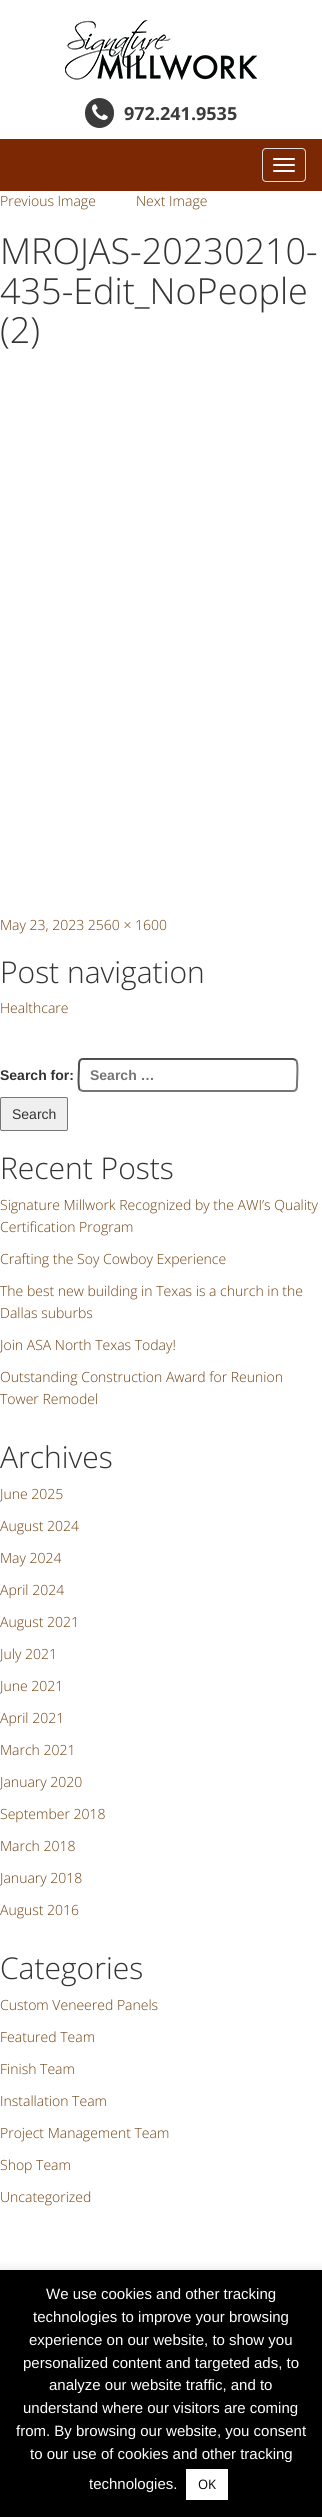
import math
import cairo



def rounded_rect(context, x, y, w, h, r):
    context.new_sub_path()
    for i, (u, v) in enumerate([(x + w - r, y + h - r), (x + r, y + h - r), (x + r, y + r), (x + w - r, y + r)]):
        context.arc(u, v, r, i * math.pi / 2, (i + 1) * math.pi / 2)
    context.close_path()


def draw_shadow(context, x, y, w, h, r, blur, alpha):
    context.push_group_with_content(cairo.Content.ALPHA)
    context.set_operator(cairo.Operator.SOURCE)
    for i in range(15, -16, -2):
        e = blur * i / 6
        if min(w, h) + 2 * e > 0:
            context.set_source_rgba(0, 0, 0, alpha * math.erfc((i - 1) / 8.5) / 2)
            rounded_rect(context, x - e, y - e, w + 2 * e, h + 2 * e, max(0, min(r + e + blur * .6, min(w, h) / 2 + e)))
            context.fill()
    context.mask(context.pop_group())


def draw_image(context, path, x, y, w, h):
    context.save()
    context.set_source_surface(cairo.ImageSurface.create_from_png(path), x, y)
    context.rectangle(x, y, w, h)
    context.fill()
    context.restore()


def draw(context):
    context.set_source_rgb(1, 1, 1)
    context.paint()
    draw_image(context, "images/1.png", 65, 20, 192, 60)
    context.set_source_rgb(59 / 255, 59 / 255, 59 / 255)
    rounded_rect(context, 85, 98, 29, 30, 14.5)
    context.fill()
    draw_image(context, "images/2.png", 92, 104, 16, 16)
    context.set_source_rgb(124 / 255, 40 / 255, 4 / 255)
    context.rectangle(0, 139, 322, 52)
    context.fill()
    rounded_rect(context, 262.5, 148.5, 43, 33, 3.5)
    context.set_source_rgb(221 / 255, 221 / 255, 221 / 255)
    context.set_line_width(1)
    context.stroke()
    context.set_source_rgb(1, 1, 1)
    rounded_rect(context, 273, 158, 22, 2, 1)
    context.fill()
    rounded_rect(context, 273, 164, 22, 2, 1)
    context.fill()
    rounded_rect(context, 273, 170, 22, 2, 1)
    context.fill()
    context.new_path()
    context.move_to(296, 1060)
    context.curve_to(298.5, 1062.5, 297, 1079, 297, 1083)
    context.curve_to(297, 1086, 297.5, 1091, 293, 1091)
    context.line_to(83, 1091)
    context.line_to(80, 1090)
    context.set_source_rgb(118 / 255, 118 / 255, 118 / 255)
    context.set_line_width(2)
    context.stroke()
    context.new_path()
    context.move_to(80, 1090)
    context.curve_to(77.5, 1087.5, 79, 1071, 79, 1067)
    context.curve_to(79, 1064, 78.5, 1059, 83, 1059)
    context.line_to(293, 1059)
    context.line_to(296, 1060)
    context.set_source_rgb(79 / 255, 79 / 255, 79 / 255)
    context.stroke()
    context.set_source_rgb(239 / 255, 239 / 255, 239 / 255)
    rounded_rect(context, 0.5, 1097.5, 67, 33, 1.5)
    context.fill_preserve()
    context.set_source_rgb(118 / 255, 118 / 255, 118 / 255)
    context.set_line_width(1)
    context.stroke()
    context.set_source_rgb(172 / 255, 171 / 255, 171 / 255)
    draw_shadow(context, 0, 2269, 322, 247, 0, 5, 0.3)
    context.set_source_rgb(0, 0, 0)
    context.rectangle(0, 2270, 322, 247)
    context.fill()
    context.set_source_rgb(1, 1, 1)
    context.rectangle(186, 2469, 42, 31)
    context.fill()
    context.select_font_face("Open Sans", cairo.FontSlant.NORMAL, cairo.FontWeight.BOLD)
    context.set_font_size(18)
    context.set_source_rgb(59 / 255, 59 / 255, 59 / 255)
    context.move_to(124, 120)
    context.show_text("972.241.9535")
    context.select_font_face("Open Sans Light")
    context.set_font_size(14)
    context.set_source_rgb(111 / 255, 64 / 255, 17 / 255)
    context.move_to(0, 206)
    context.show_text("Previous Image")
    context.move_to(136, 206)
    context.show_text("Next Image")
    context.set_font_size(36)
    context.set_source_rgb(51 / 255, 51 / 255, 51 / 255)
    context.move_to(0, 264)
    context.show_text("MROJAS-20230210-")
    context.move_to(0, 304)
    context.show_text("435-Edit_NoPeople")
    context.move_to(0, 343)
    context.show_text("(2)")
    context.set_font_size(14)
    context.set_source_rgb(111 / 255, 64 / 255, 17 / 255)
    context.move_to(0, 930)
    context.show_text("May 23, 2023 2560 × 1600")
    context.set_font_size(30)
    context.set_source_rgb(51 / 255, 51 / 255, 51 / 255)
    context.move_to(0, 983)
    context.show_text("Post navigation")
    context.set_font_size(14)
    context.set_source_rgb(111 / 255, 64 / 255, 17 / 255)
    context.move_to(0, 1013)
    context.show_text("Healthcare")
    context.select_font_face("Liberation Sans", cairo.FontSlant.NORMAL, cairo.FontWeight.BOLD)
    context.set_source_rgb(51 / 255, 51 / 255, 51 / 255)
    context.move_to(0, 1080)
    context.show_text("Search for:")
    context.set_source_rgb(117 / 255, 117 / 255, 117 / 255)
    context.move_to(90, 1080)
    context.show_text("Search …")
    context.select_font_face("Liberation Sans")
    context.set_source_rgb(51 / 255, 51 / 255, 51 / 255)
    context.move_to(12, 1119)
    context.show_text("Search")
    context.select_font_face("Open Sans Light")
    context.set_font_size(30)
    context.move_to(0, 1179)
    context.show_text("Recent Posts")
    context.set_font_size(14)
    context.set_source_rgb(111 / 255, 64 / 255, 17 / 255)
    context.move_to(0, 1210)
    context.show_text("Signature Millwork Recognized by the AWI’s Quality")
    context.move_to(0, 1232)
    context.show_text("Certification Program")
    context.move_to(0, 1264)
    context.show_text("Crafting the Soy Cowboy Experience")
    context.move_to(0, 1296)
    context.show_text("The best new building in Texas is a church in the")
    context.move_to(0, 1318)
    context.show_text("Dallas suburbs")
    context.move_to(0, 1350)
    context.show_text("Join ASA North Texas Today!")
    context.move_to(0, 1382)
    context.show_text("Outstanding Construction Award for Reunion")
    context.move_to(0, 1404)
    context.show_text("Tower Remodel")
    context.set_font_size(30)
    context.set_source_rgb(51 / 255, 51 / 255, 51 / 255)
    context.move_to(0, 1468)
    context.show_text("Archives")
    context.set_font_size(14)
    context.set_source_rgb(111 / 255, 64 / 255, 17 / 255)
    context.move_to(0, 1499)
    context.show_text("June 2025")
    context.move_to(0, 1531)
    context.show_text("August 2024")
    context.move_to(0, 1563)
    context.show_text("May 2024")
    context.move_to(0, 1595)
    context.show_text("April 2024")
    context.move_to(0, 1627)
    context.show_text("August 2021")
    context.move_to(0, 1659)
    context.show_text("July 2021")
    context.move_to(0, 1691)
    context.show_text("June 2021")
    context.move_to(0, 1723)
    context.show_text("April 2021")
    context.move_to(0, 1755)
    context.show_text("March 2021")
    context.move_to(0, 1787)
    context.show_text("January 2020")
    context.move_to(0, 1819)
    context.show_text("September 2018")
    context.move_to(0, 1851)
    context.show_text("March 2018")
    context.move_to(0, 1883)
    context.show_text("January 2018")
    context.move_to(0, 1915)
    context.show_text("August 2016")
    context.set_font_size(30)
    context.set_source_rgb(51 / 255, 51 / 255, 51 / 255)
    context.move_to(0, 1979)
    context.show_text("Categories")
    context.set_font_size(14)
    context.set_source_rgb(111 / 255, 64 / 255, 17 / 255)
    context.move_to(0, 2010)
    context.show_text("Custom Veneered Panels")
    context.move_to(0, 2042)
    context.show_text("Featured Team")
    context.move_to(0, 2074)
    context.show_text("Finish Team")
    context.move_to(0, 2106)
    context.show_text("Installation Team")
    context.move_to(0, 2138)
    context.show_text("Project Management Team")
    context.move_to(0, 2170)
    context.show_text("Shop Team")
    context.move_to(0, 2202)
    context.show_text("Uncategorized")
    context.select_font_face("Liberation Sans")
    context.set_font_size(15)
    context.set_source_rgb(1, 1, 1)
    context.move_to(46, 2299)
    context.show_text("We use cookies and other tracking")
    context.move_to(33, 2322)
    context.show_text("technologies to improve your browsing")
    context.move_to(29, 2345)
    context.show_text("experience on our website, to show you")
    context.move_to(23, 2368)
    context.show_text("personalized content and targeted ads, to")
    context.move_to(49, 2390)
    context.show_text("analyze our website traffic, and to")
    context.move_to(23, 2413)
    context.show_text("understand where our visitors are coming")
    context.move_to(16, 2436)
    context.show_text("from. By browsing our website, you consent")
    context.move_to(30, 2459)
    context.show_text("to our use of cookies and other tracking")
    context.move_to(89, 2489)
    context.show_text("technologies.")
    context.select_font_face("Open Sans")
    context.set_font_size(13)
    context.set_source_rgb(0, 0, 0)
    context.move_to(198, 2489)
    context.show_text("OK")


surface = cairo.ImageSurface(cairo.Format.RGB24, 322, 2517)
context = cairo.Context(surface)
options = cairo.FontOptions()
options.set_hint_metrics(cairo.HintMetrics.OFF)
options.set_hint_style(cairo.HintStyle.NONE)
context.set_font_options(options)
context.set_miter_limit(4)
draw(context)
surface.write_to_png("out.png")
